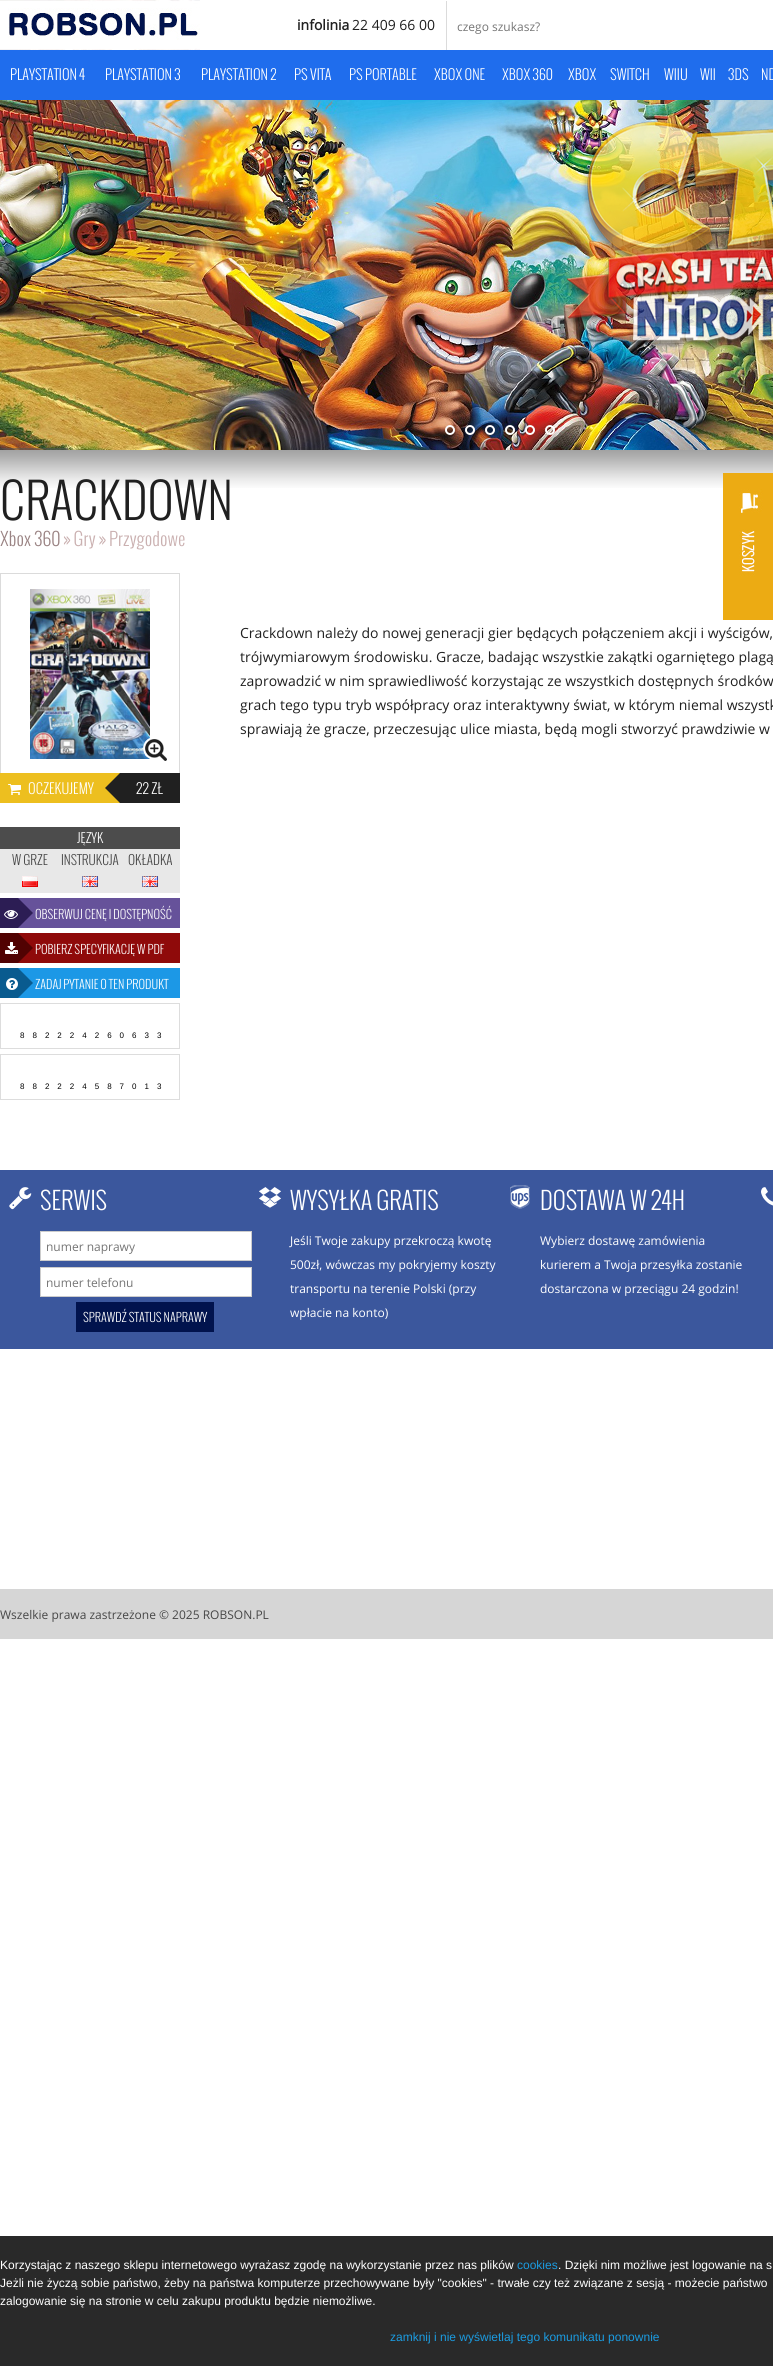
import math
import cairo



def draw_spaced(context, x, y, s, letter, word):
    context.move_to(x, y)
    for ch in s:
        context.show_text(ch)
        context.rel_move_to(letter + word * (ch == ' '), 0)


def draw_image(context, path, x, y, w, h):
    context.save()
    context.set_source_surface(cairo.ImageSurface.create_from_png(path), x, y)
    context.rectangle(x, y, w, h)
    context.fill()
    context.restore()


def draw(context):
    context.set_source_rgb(1, 1, 1)
    context.paint()
    draw_image(context, "images/1.png", 0, 0, 200, 50)
    context.set_source_rgb(219 / 255, 219 / 255, 219 / 255)
    context.rectangle(446, 1, 1, 50)
    context.fill()
    context.set_source_rgb(31 / 255, 109 / 255, 237 / 255)
    context.rectangle(0, 50, 773, 50)
    context.fill()
    draw_image(context, "images/2.png", 0, 100, 773, 350)
    draw_image(context, "images/3.png", 564, 121, 209, 229)
    context.set_source_rgba(85 / 255, 85 / 255, 85 / 255, 0.55)
    context.rectangle(0, 448, 68, 2)
    context.fill()
    draw_image(context, "images/4.png", 445, 425, 11, 10)
    draw_image(context, "images/5.png", 465, 425, 10, 12)
    draw_image(context, "images/6.png", 485, 425, 10, 12)
    draw_image(context, "images/7.png", 505, 425, 11, 12)
    draw_image(context, "images/8.png", 524, 425, 12, 13)
    draw_image(context, "images/9.png", 545, 425, 11, 13)
    draw_image(context, "images/11.png", 0, 450, 773, 38)
    draw_image(context, "images/10.png", 723, 473, 50, 147)
    context.set_source_rgb(219 / 255, 219 / 255, 219 / 255)
    context.rectangle(0, 573, 180, 1)
    context.fill()
    context.rectangle(179, 573, 1, 200)
    context.fill()
    context.rectangle(0, 573, 1, 200)
    context.fill()
    draw_image(context, "images/12.png", 30, 589, 120, 170)
    draw_image(context, "images/13.png", 143, 738, 24, 23)
    context.set_source_rgb(237 / 255, 191 / 255, 31 / 255)
    context.rectangle(0, 773, 120, 30)
    context.fill()
    draw_image(context, "images/14.png", 8, 784, 13, 11)
    context.set_source_rgb(32 / 255, 32 / 255, 32 / 255)
    context.rectangle(120, 773, 60, 30)
    context.fill()
    context.new_path()
    context.move_to(120, 773)
    context.line_to(120, 803)
    context.line_to(105, 788)
    context.close_path()
    context.fill()
    context.set_source_rgb(76 / 255, 76 / 255, 76 / 255)
    context.rectangle(0, 827, 180, 22)
    context.fill()
    context.set_source_rgb(232 / 255, 232 / 255, 232 / 255)
    context.rectangle(0, 849, 180, 44)
    context.fill()
    draw_image(context, "images/15.png", 22, 876, 16, 11)
    draw_image(context, "images/16.png", 82, 876, 16, 11)
    draw_image(context, "images/16.png", 142, 876, 16, 11)
    context.set_source_rgb(102 / 255, 82 / 255, 154 / 255)
    context.rectangle(18, 898, 162, 30)
    context.fill()
    context.set_source_rgb(44 / 255, 29 / 255, 84 / 255)
    context.rectangle(0, 898, 18, 30)
    context.fill()
    draw_image(context, "images/17.png", 4, 910, 14, 9)
    context.new_path()
    context.move_to(18, 928)
    context.line_to(18, 898)
    context.line_to(33, 913)
    context.close_path()
    context.fill()
    context.set_source_rgb(143 / 255, 10 / 255, 10 / 255)
    context.rectangle(18, 933, 162, 30)
    context.fill()
    context.set_source_rgb(81 / 255, 2 / 255, 2 / 255)
    context.rectangle(0, 933, 18, 30)
    context.fill()
    draw_image(context, "images/18.png", 5, 942, 13, 12)
    context.new_path()
    context.move_to(18, 963)
    context.line_to(18, 933)
    context.line_to(33, 948)
    context.close_path()
    context.fill()
    context.set_source_rgb(28 / 255, 152 / 255, 230 / 255)
    context.rectangle(18, 968, 162, 30)
    context.fill()
    context.set_source_rgb(9 / 255, 91 / 255, 143 / 255)
    context.rectangle(0, 968, 18, 30)
    context.fill()
    draw_image(context, "images/19.png", 6, 978, 12, 12)
    context.new_path()
    context.move_to(18, 998)
    context.line_to(18, 968)
    context.line_to(33, 983)
    context.close_path()
    context.fill()
    context.rectangle(0.5, 1003.5, 179, 45)
    context.set_source_rgb(221 / 255, 221 / 255, 221 / 255)
    context.set_line_width(1)
    context.stroke()
    context.rectangle(0.5, 1054.5, 179, 45)
    context.stroke()
    context.set_source_rgb(59 / 255, 87 / 255, 157 / 255)
    context.rectangle(0, 1170, 773, 179)
    context.fill()
    draw_image(context, "images/20.png", 9, 1187, 23, 23)
    context.set_source_rgb(1, 1, 1)
    context.rectangle(40.5, 1231.5, 211, 29)
    context.fill_preserve()
    context.set_source_rgb(204 / 255, 204 / 255, 204 / 255)
    context.stroke()
    context.set_source_rgb(1, 1, 1)
    context.rectangle(40.5, 1267.5, 211, 29)
    context.fill_preserve()
    context.set_source_rgb(204 / 255, 204 / 255, 204 / 255)
    context.stroke()
    context.set_source_rgb(1 / 255, 19 / 255, 77 / 255)
    context.rectangle(76, 1302, 138, 30)
    context.fill()
    draw_image(context, "images/21.png", 259, 1187, 22, 21)
    draw_image(context, "images/22.png", 510, 1185, 20, 24)
    draw_image(context, "images/23.png", 761, 1187, 12, 19)
    context.set_source_rgb(214 / 255, 214 / 255, 214 / 255)
    context.rectangle(0, 1589, 773, 50)
    context.fill()
    context.set_source_rgb(41 / 255, 41 / 255, 41 / 255)
    context.rectangle(0, 2236, 773, 130)
    context.fill()
    context.select_font_face("Open Sans", cairo.FontSlant.NORMAL, cairo.FontWeight.BOLD)
    context.set_font_size(14)
    context.set_source_rgb(32 / 255, 32 / 255, 32 / 255)
    context.move_to(297, 30)
    context.show_text("infolinia")
    context.select_font_face("Open Sans")
    context.move_to(352, 30)
    context.show_text("22 409 66 00")
    context.set_font_size(12)
    context.set_source_rgb(117 / 255, 117 / 255, 117 / 255)
    context.move_to(457, 31)
    context.show_text("czego szukasz?")
    context.select_font_face("Oswald Light")
    context.set_font_size(14)
    context.set_source_rgb(1, 1, 1)
    context.move_to(10, 80)
    context.show_text("PLAYSTATION 4")
    context.move_to(105, 80)
    context.show_text("PLAYSTATION 3")
    context.move_to(201, 80)
    context.show_text("PLAYSTATION 2")
    context.move_to(294, 80)
    context.show_text("PS VITA")
    context.move_to(349, 80)
    context.show_text("PS PORTABLE")
    context.move_to(434, 80)
    context.show_text("XBOX ONE")
    context.move_to(502, 80)
    context.show_text("XBOX 360")
    context.move_to(568, 80)
    context.show_text("XBOX")
    context.move_to(610, 80)
    context.show_text("SWITCH")
    context.move_to(664, 80)
    context.show_text("WIIU")
    context.move_to(700, 80)
    context.show_text("WII")
    context.move_to(728, 80)
    context.show_text("3DS")
    context.move_to(761, 80)
    context.show_text("ND")
    context.set_font_size(48)
    context.set_source_rgb(32 / 255, 32 / 255, 32 / 255)
    context.move_to(0, 520)
    context.show_text("CRACKDOWN")
    context.set_font_size(18)
    context.set_source_rgb(154 / 255, 131 / 255, 131 / 255)
    context.move_to(0, 546)
    context.show_text("Xbox 360")
    context.set_source_rgb(202 / 255, 176 / 255, 176 / 255)
    context.move_to(63, 546)
    context.show_text("» Gry » Przygodowe")
    context.select_font_face("Open Sans")
    context.set_font_size(14)
    context.set_source_rgb(32 / 255, 32 / 255, 32 / 255)
    context.move_to(240, 638)
    context.show_text("Crackdown należy do nowej generacji gier będących połączeniem akcji i wyścigów,")
    context.move_to(240, 662)
    context.show_text("trójwymiarowym środowisku. Gracze, badając wszystkie zakątki ogarniętego plagą")
    context.move_to(240, 686)
    context.show_text("zaprowadzić w nim sprawiedliwość korzystając ze wszystkich dostępnych środków")
    context.move_to(240, 710)
    context.show_text("grach tego typu tryb współpracy oraz interaktywny świat, w którym niemal wszystk")
    context.move_to(240, 734)
    context.show_text("sprawiają że gracze, przeczesując ulice miasta, będą mogli stworzyć prawdziwie w")
    context.select_font_face("Oswald Light")
    context.set_source_rgb(1, 1, 1)
    context.move_to(28, 794)
    context.show_text("OCZEKUJEMY")
    context.move_to(136, 794)
    context.show_text("22 ZŁ")
    context.set_font_size(13)
    context.move_to(77, 843)
    context.show_text("JĘZYK")
    context.set_source_rgb(71 / 255, 71 / 255, 71 / 255)
    context.move_to(12, 865)
    context.show_text("W GRZE")
    context.move_to(61, 865)
    context.show_text("INSTRUKCJA")
    context.move_to(128, 865)
    context.show_text("OKŁADKA")
    context.set_font_size(12)
    context.set_source_rgb(1, 1, 1)
    context.move_to(35, 919)
    context.show_text("OBSERWUJ CENĘ I DOSTĘPNOŚĆ")
    context.move_to(35, 954)
    context.show_text("POBIERZ SPECYFIKACJĘ W PDF")
    context.move_to(35, 989)
    context.show_text("ZADAJ PYTANIE O TEN PRODUKT")
    context.select_font_face("Liberation Sans")
    context.set_font_size(8)
    context.set_source_rgb(0, 0, 0)
    draw_spaced(context, 20, 1038, "882224260633", 8, 0)
    draw_spaced(context, 20, 1089, "882224587013", 8, 0)
    context.select_font_face("Oswald Light")
    context.set_font_size(24)
    context.set_source_rgb(1, 1, 1)
    context.move_to(40, 1210)
    context.show_text("SERWIS")
    context.select_font_face("Open Sans")
    context.set_font_size(12)
    context.set_source_rgb(117 / 255, 117 / 255, 117 / 255)
    context.move_to(46, 1251)
    context.show_text("numer naprawy")
    context.move_to(46, 1287)
    context.show_text("numer telefonu")
    context.select_font_face("Oswald Light")
    context.set_source_rgb(1, 1, 1)
    context.move_to(83, 1322)
    context.show_text("SPRAWDŹ STATUS NAPRAWY")
    context.set_font_size(24)
    context.move_to(290, 1210)
    context.show_text("WYSYŁKA GRATIS")
    context.select_font_face("Open Sans")
    context.set_font_size(12)
    context.move_to(290, 1245)
    context.show_text("Jeśli Twoje zakupy przekroczą kwotę")
    context.move_to(290, 1269)
    context.show_text("500zł, wówczas my pokryjemy koszty")
    context.move_to(290, 1293)
    context.show_text("transportu na terenie Polski (przy")
    context.move_to(290, 1317)
    context.show_text("wpłacie na konto)")
    context.select_font_face("Oswald Light")
    context.set_font_size(24)
    context.move_to(540, 1210)
    context.show_text("DOSTAWA W 24H")
    context.select_font_face("Open Sans")
    context.set_font_size(12)
    context.move_to(540, 1245)
    context.show_text("Wybierz dostawę zamówienia")
    context.move_to(540, 1269)
    context.show_text("kurierem a Twoja przesyłka zostanie")
    context.move_to(540, 1293)
    context.show_text("dostarczona w przeciągu 24 godzin!")
    context.set_source_rgb(71 / 255, 71 / 255, 71 / 255)
    context.move_to(0, 1619)
    context.show_text("Wszelkie prawa zastrzeżone © 2025 ROBSON.PL")
    context.select_font_face("Liberation Sans")
    context.set_source_rgb(1, 1, 1)
    context.move_to(0, 2269)
    context.show_text("Korzystając z naszego sklepu internetowego wyrażasz zgodę na wykorzystanie przez nas plików")
    context.set_source_rgb(27 / 255, 155 / 255, 224 / 255)
    context.move_to(517, 2269)
    context.show_text("cookies")
    context.set_source_rgb(1, 1, 1)
    context.move_to(558, 2269)
    context.show_text(". Dzięki nim możliwe jest logowanie na s")
    context.move_to(0, 2287)
    context.show_text("Jeżli nie życzą sobie państwo, żeby na państwa komputerze przechowywane były \"cookies\" - trwałe czy też związane z sesją - możecie państwo")
    context.move_to(0, 2305)
    context.show_text("zalogowanie się na stronie w celu zakupu produktu będzie niemożliwe.")
    context.set_source_rgb(27 / 255, 155 / 255, 224 / 255)
    context.move_to(390, 2341)
    context.show_text("zamknij i nie wyświetlaj tego komunikatu ponownie")


surface = cairo.ImageSurface(cairo.Format.RGB24, 773, 2366)
context = cairo.Context(surface)
options = cairo.FontOptions()
options.set_hint_metrics(cairo.HintMetrics.OFF)
options.set_hint_style(cairo.HintStyle.NONE)
context.set_font_options(options)
context.set_miter_limit(4)
draw(context)
surface.write_to_png("out.png")
